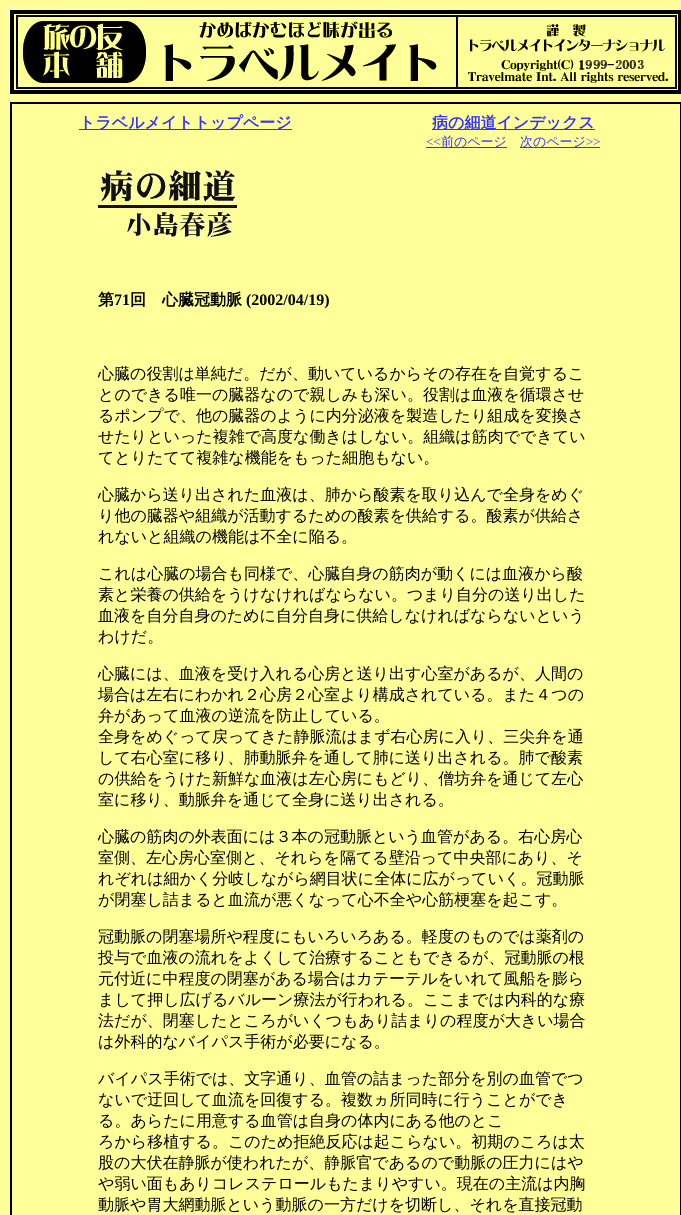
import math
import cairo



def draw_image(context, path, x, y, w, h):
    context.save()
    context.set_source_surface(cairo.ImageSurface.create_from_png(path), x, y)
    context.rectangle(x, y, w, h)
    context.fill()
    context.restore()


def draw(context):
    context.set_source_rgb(1, 1, 153 / 255)
    context.paint()
    draw_image(context, "images/1.png", 10, 10, 671, 84)
    context.rectangle(10.5, 102.5, 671, 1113)
    context.set_source_rgb(0, 0, 0)
    context.set_line_width(1)
    context.stroke()
    context.rectangle(11.5, 103.5, 669, 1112)
    context.stroke()
    context.set_source_rgb(51 / 255, 51 / 255, 1)
    context.rectangle(79, 129, 213, 1)
    context.fill()
    context.rectangle(432, 129, 163, 1)
    context.fill()
    context.rectangle(426, 147, 81, 1)
    context.fill()
    context.rectangle(520, 147, 80, 1)
    context.fill()
    draw_image(context, "images/2.png", 98, 170, 139, 67)
    context.select_font_face("WenQuanYi Zen Hei", cairo.FontSlant.NORMAL, cairo.FontWeight.BOLD)
    context.set_font_size(16)
    context.move_to(79, 128)
    context.show_text("トラベルメイトトップページ")
    context.move_to(432, 128)
    context.show_text("病の細道インデックス")
    context.select_font_face("Liberation Serif")
    context.set_font_size(13)
    context.move_to(426, 146)
    context.show_text("<<")
    context.select_font_face("WenQuanYi Zen Hei Medium")
    context.move_to(441, 146)
    context.show_text("前のページ")
    context.move_to(520, 146)
    context.show_text("次のページ")
    context.select_font_face("Liberation Serif")
    context.move_to(586, 146)
    context.show_text(">>")
    context.select_font_face("WenQuanYi Zen Hei", cairo.FontSlant.NORMAL, cairo.FontWeight.BOLD)
    context.set_font_size(16)
    context.set_source_rgb(0, 0, 0)
    context.move_to(98, 305)
    context.show_text("第")
    context.select_font_face("Liberation Serif", cairo.FontSlant.NORMAL, cairo.FontWeight.BOLD)
    context.move_to(114, 305)
    context.show_text("71")
    context.select_font_face("WenQuanYi Zen Hei", cairo.FontSlant.NORMAL, cairo.FontWeight.BOLD)
    context.move_to(130, 305)
    context.show_text("回　心臓冠動脈")
    context.select_font_face("Liberation Serif", cairo.FontSlant.NORMAL, cairo.FontWeight.BOLD)
    context.move_to(246, 305)
    context.show_text("(2002/04/19)")
    context.select_font_face("WenQuanYi Zen Hei Medium")
    context.move_to(98, 379)
    context.show_text("心臓の役割は単純だ。だが、動いているからその存在を自覚するこ")
    context.move_to(98, 400)
    context.show_text("とのできる唯一の臓器なので親しみも深い。役割は血液を循環させ")
    context.move_to(98, 421)
    context.show_text("るポンプで、他の臓器のように内分泌液を製造したり組成を変換さ")
    context.move_to(98, 442)
    context.show_text("せたりといった複雑で高度な働きはしない。組織は筋肉でできてい")
    context.move_to(98, 463)
    context.show_text("てとりたてて複雑な機能をもった細胞もない。")
    context.move_to(98, 500)
    context.show_text("心臓から送り出された血液は、肺から酸素を取り込んで全身をめぐ")
    context.move_to(98, 521)
    context.show_text("り他の臓器や組織が活動するための酸素を供給する。酸素が供給さ")
    context.move_to(98, 542)
    context.show_text("れないと組織の機能は不全に陥る。")
    context.move_to(98, 579)
    context.show_text("これは心臓の場合も同様で、心臓自身の筋肉が動くには血液から酸")
    context.move_to(98, 600)
    context.show_text("素と栄養の供給をうけなければならない。つまり自分の送り出した")
    context.move_to(98, 621)
    context.show_text("血液を自分自身のために自分自身に供給しなければならないという")
    context.move_to(98, 642)
    context.show_text("わけだ。")
    context.move_to(98, 679)
    context.show_text("心臓には、血液を受け入れる心房と送り出す心室があるが、人間の")
    context.move_to(98, 700)
    context.show_text("場合は左右にわかれ２心房２心室より構成されている。また４つの")
    context.move_to(98, 721)
    context.show_text("弁があって血液の逆流を防止している。")
    context.move_to(98, 742)
    context.show_text("全身をめぐって戻ってきた静脈流はまず右心房に入り、三尖弁を通")
    context.move_to(98, 763)
    context.show_text("して右心室に移り、肺動脈弁を通して肺に送り出される。肺で酸素")
    context.move_to(98, 784)
    context.show_text("の供給をうけた新鮮な血液は左心房にもどり、僧坊弁を通じて左心")
    context.move_to(98, 805)
    context.show_text("室に移り、動脈弁を通じて全身に送り出される。")
    context.move_to(98, 842)
    context.show_text("心臓の筋肉の外表面には３本の冠動脈という血管がある。右心房心")
    context.move_to(98, 863)
    context.show_text("室側、左心房心室側と、それらを隔てる壁沿って中央部にあり、そ")
    context.move_to(98, 884)
    context.show_text("れぞれは細かく分岐しながら網目状に全体に広がっていく。冠動脈")
    context.move_to(98, 905)
    context.show_text("が閉塞し詰まると血流が悪くなって心不全や心筋梗塞を起こす。")
    context.move_to(98, 942)
    context.show_text("冠動脈の閉塞場所や程度にもいろいろある。軽度のものでは薬剤の")
    context.move_to(98, 963)
    context.show_text("投与で血液の流れをよくして治療することもできるが、冠動脈の根")
    context.move_to(98, 984)
    context.show_text("元付近に中程度の閉塞がある場合はカテーテルをいれて風船を膨ら")
    context.move_to(98, 1005)
    context.show_text("まして押し広げるバルーン療法が行われる。ここまでは内科的な療")
    context.move_to(98, 1026)
    context.show_text("法だが、閉塞したところがいくつもあり詰まりの程度が大きい場合")
    context.move_to(98, 1047)
    context.show_text("は外科的なバイパス手術が必要になる。")
    context.move_to(98, 1084)
    context.show_text("バイパス手術では、文字通り、血管の詰まった部分を別の血管でつ")
    context.move_to(98, 1105)
    context.show_text("ないで迂回して血流を回復する。複数ヵ所同時に行うことができ")
    context.move_to(98, 1126)
    context.show_text("る。あらたに用意する血管は自身の体内にある他のとこ")
    context.move_to(98, 1147)
    context.show_text("ろから移植する。このため拒絶反応は起こらない。初期のころは太")
    context.move_to(98, 1168)
    context.show_text("股の大伏在静脈が使われたが、静脈官であるので動脈の圧力にはや")
    context.move_to(98, 1189)
    context.show_text("や弱い面もありコレステロールもたまりやすい。現在の主流は内胸")
    context.move_to(98, 1210)
    context.show_text("動脈や胃大網動脈という動脈の一方だけを切断し、それを直接冠動")


surface = cairo.ImageSurface(cairo.Format.RGB24, 681, 1215)
context = cairo.Context(surface)
options = cairo.FontOptions()
options.set_hint_metrics(cairo.HintMetrics.OFF)
options.set_hint_style(cairo.HintStyle.NONE)
context.set_font_options(options)
context.set_miter_limit(4)
draw(context)
surface.write_to_png("out.png")
